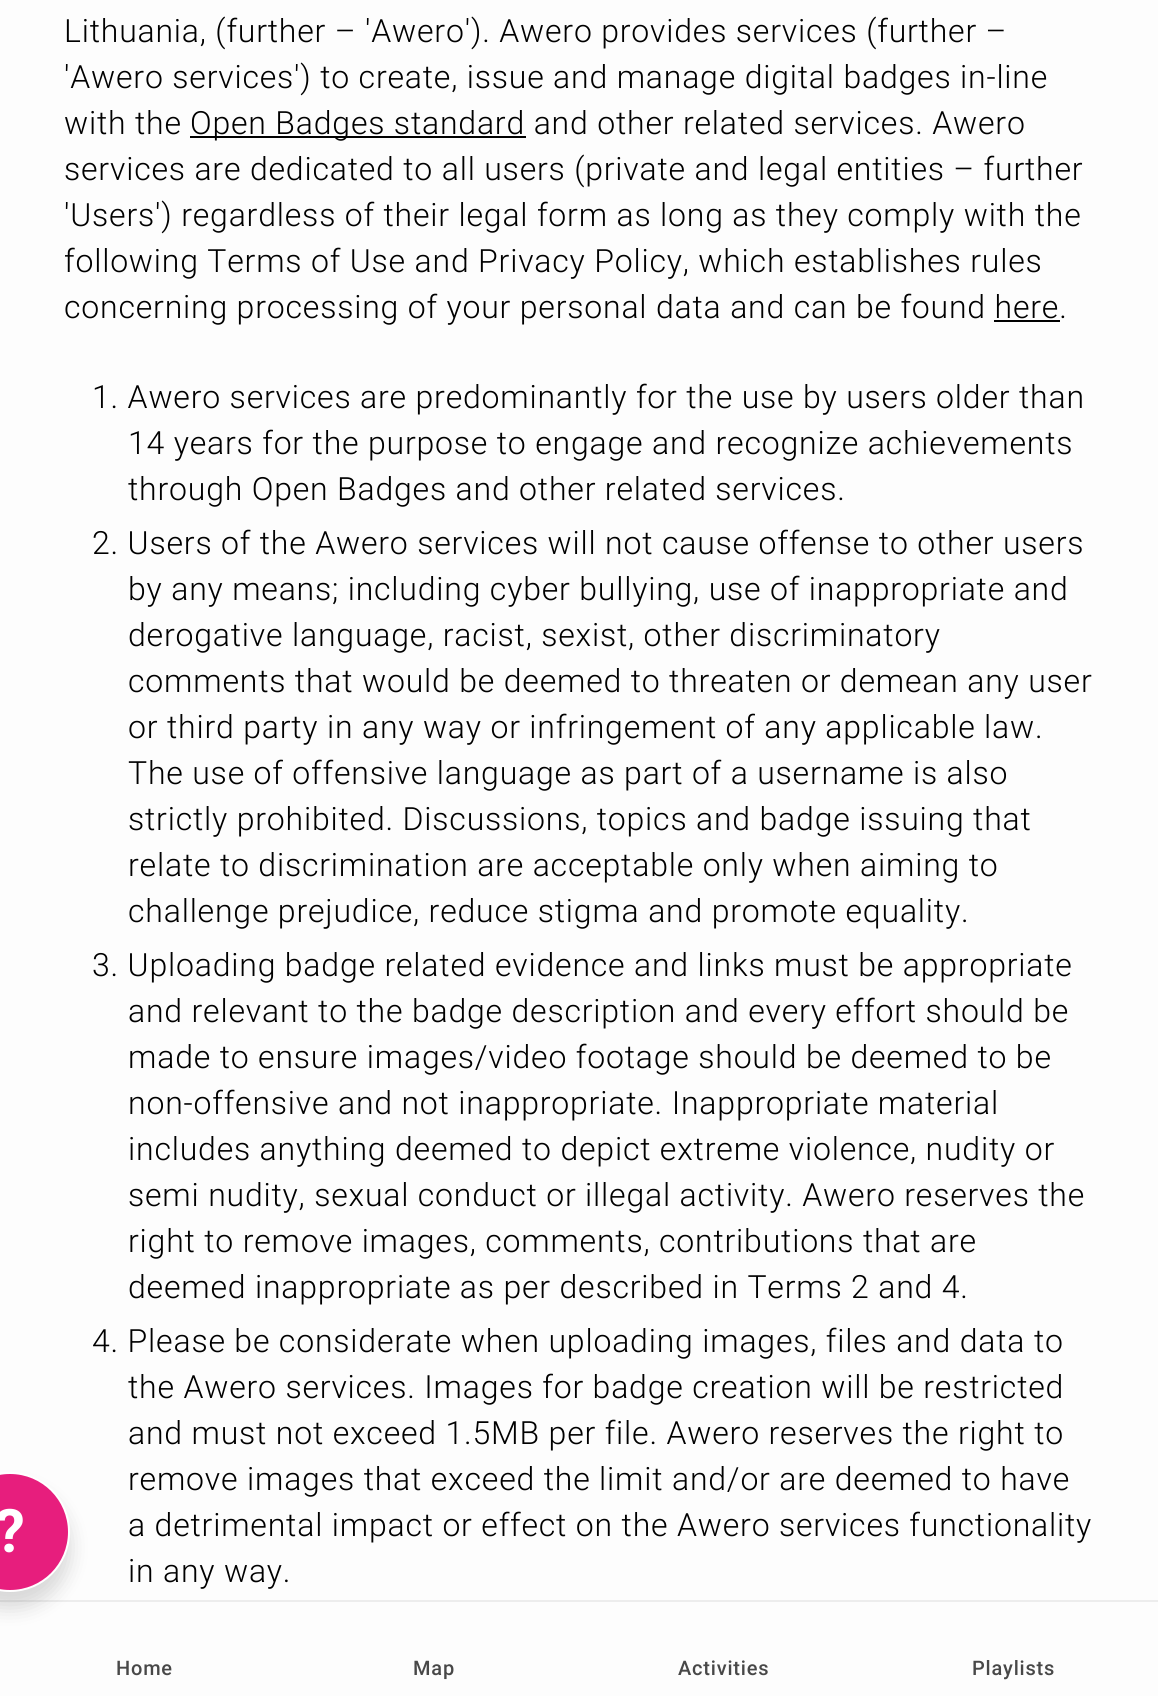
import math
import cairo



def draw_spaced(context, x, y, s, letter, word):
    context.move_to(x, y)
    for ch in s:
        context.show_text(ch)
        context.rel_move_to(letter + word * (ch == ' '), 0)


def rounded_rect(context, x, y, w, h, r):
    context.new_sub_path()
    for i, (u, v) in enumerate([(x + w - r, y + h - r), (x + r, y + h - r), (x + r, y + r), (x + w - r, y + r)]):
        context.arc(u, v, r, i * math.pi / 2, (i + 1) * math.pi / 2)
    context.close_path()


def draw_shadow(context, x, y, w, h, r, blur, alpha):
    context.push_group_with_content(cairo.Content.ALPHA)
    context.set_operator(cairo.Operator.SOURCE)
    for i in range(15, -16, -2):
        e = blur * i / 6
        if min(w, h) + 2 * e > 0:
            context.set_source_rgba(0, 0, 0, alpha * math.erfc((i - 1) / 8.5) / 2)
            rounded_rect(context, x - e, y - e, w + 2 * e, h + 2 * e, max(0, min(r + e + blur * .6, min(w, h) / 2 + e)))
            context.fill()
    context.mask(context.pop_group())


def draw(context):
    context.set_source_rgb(253 / 255, 253 / 255, 253 / 255)
    context.paint()
    context.set_source_rgb(237 / 255, 237 / 255, 237 / 255)
    context.rectangle(0, 1600, 1158, 2)
    context.fill()
    context.set_source_rgb(0, 0, 0)
    draw_shadow(context, -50, 1488, 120, 120, 60, 10, 0.15)
    context.set_source_rgb(231 / 255, 30 / 255, 125 / 255)
    context.arc(10, 1532, 59, 0, 2 * math.pi)
    context.fill_preserve()
    context.set_source_rgb(1, 1, 1)
    context.stroke()
    context.set_source_rgb(0, 0, 0)
    context.rectangle(190, 136, 336, 2)
    context.fill()
    context.rectangle(994, 320, 66, 2)
    context.fill()
    context.select_font_face("Roboto", cairo.FontSlant.NORMAL, cairo.FontWeight.BOLD)
    context.set_font_size(60)
    context.set_source_rgb(1, 1, 1)
    context.move_to(-5, 1552)
    context.show_text("?")
    context.select_font_face("Roboto Light")
    context.set_font_size(32)
    context.set_source_rgb(0, 0, 0)
    draw_spaced(context, 64, 42, "Lithuania, (further – 'Awero'). Awero provides services (further –", 0.8, 0)
    draw_spaced(context, 64, 88, "'Awero services') to create, issue and manage digital badges in-line", 0.8, 0)
    draw_spaced(context, 64, 134, "with the", 0.8, 0)
    draw_spaced(context, 190, 134, "Open Badges standard and other related services. Awero", 0.8, 0)
    draw_spaced(context, 64, 180, "services are dedicated to all users (private and legal entities – further", 0.8, 0)
    draw_spaced(context, 64, 226, "'Users') regardless of their legal form as long as they comply with the", 0.8, 0)
    draw_spaced(context, 64, 272, "following Terms of Use and Privacy Policy, which establishes rules", 0.8, 0)
    draw_spaced(context, 64, 318, "concerning processing of your personal data and can be found here.", 0.8, 0)
    draw_spaced(context, 92, 408, "1. Awero services are predominantly for the use by users older than", 0.8, 0)
    draw_spaced(context, 128, 454, "14 years for the purpose to engage and recognize achievements", 0.8, 0)
    draw_spaced(context, 128, 500, "through Open Badges and other related services.", 0.8, 0)
    draw_spaced(context, 92, 554, "2. Users of the Awero services will not cause offense to other users", 0.8, 0)
    draw_spaced(context, 128, 600, "by any means; including cyber bullying, use of inappropriate and", 0.8, 0)
    draw_spaced(context, 128, 646, "derogative language, racist, sexist, other discriminatory", 0.8, 0)
    draw_spaced(context, 128, 692, "comments that would be deemed to threaten or demean any user", 0.8, 0)
    draw_spaced(context, 128, 738, "or third party in any way or infringement of any applicable law.", 0.8, 0)
    draw_spaced(context, 128, 784, "The use of offensive language as part of a username is also", 0.8, 0)
    draw_spaced(context, 128, 830, "strictly prohibited. Discussions, topics and badge issuing that", 0.8, 0)
    draw_spaced(context, 128, 876, "relate to discrimination are acceptable only when aiming to", 0.8, 0)
    draw_spaced(context, 128, 922, "challenge prejudice, reduce stigma and promote equality.", 0.8, 0)
    draw_spaced(context, 92, 976, "3. Uploading badge related evidence and links must be appropriate", 0.8, 0)
    draw_spaced(context, 128, 1022, "and relevant to the badge description and every effort should be", 0.8, 0)
    draw_spaced(context, 128, 1068, "made to ensure images/video footage should be deemed to be", 0.8, 0)
    draw_spaced(context, 128, 1114, "non-offensive and not inappropriate. Inappropriate material", 0.8, 0)
    draw_spaced(context, 128, 1160, "includes anything deemed to depict extreme violence, nudity or", 0.8, 0)
    draw_spaced(context, 128, 1206, "semi nudity, sexual conduct or illegal activity. Awero reserves the", 0.8, 0)
    draw_spaced(context, 128, 1252, "right to remove images, comments, contributions that are", 0.8, 0)
    draw_spaced(context, 128, 1298, "deemed inappropriate as per described in Terms 2 and 4.", 0.8, 0)
    draw_spaced(context, 92, 1352, "4. Please be considerate when uploading images, files and data to", 0.8, 0)
    draw_spaced(context, 128, 1398, "the Awero services. Images for badge creation will be restricted", 0.8, 0)
    draw_spaced(context, 128, 1444, "and must not exceed 1.5MB per file. Awero reserves the right to", 0.8, 0)
    draw_spaced(context, 128, 1490, "remove images that exceed the limit and/or are deemed to have", 0.8, 0)
    draw_spaced(context, 128, 1536, "a detrimental impact or effect on the Awero services functionality", 0.8, 0)
    draw_spaced(context, 128, 1582, "in any way.", 0.8, 0)
    context.select_font_face("Roboto Medium")
    context.set_font_size(20)
    context.set_source_rgb(72 / 255, 72 / 255, 72 / 255)
    draw_spaced(context, 116, 1675, "Home", 0.8, 0)
    draw_spaced(context, 413, 1675, "Map", 0.8, 0)
    draw_spaced(context, 678, 1675, "Activities", 0.8, 0)
    draw_spaced(context, 972, 1675, "Playlists", 0.8, 0)


surface = cairo.ImageSurface(cairo.Format.RGB24, 1158, 1696)
context = cairo.Context(surface)
options = cairo.FontOptions()
options.set_hint_metrics(cairo.HintMetrics.OFF)
options.set_hint_style(cairo.HintStyle.NONE)
context.set_font_options(options)
context.set_miter_limit(4)
draw(context)
surface.write_to_png("out.png")
